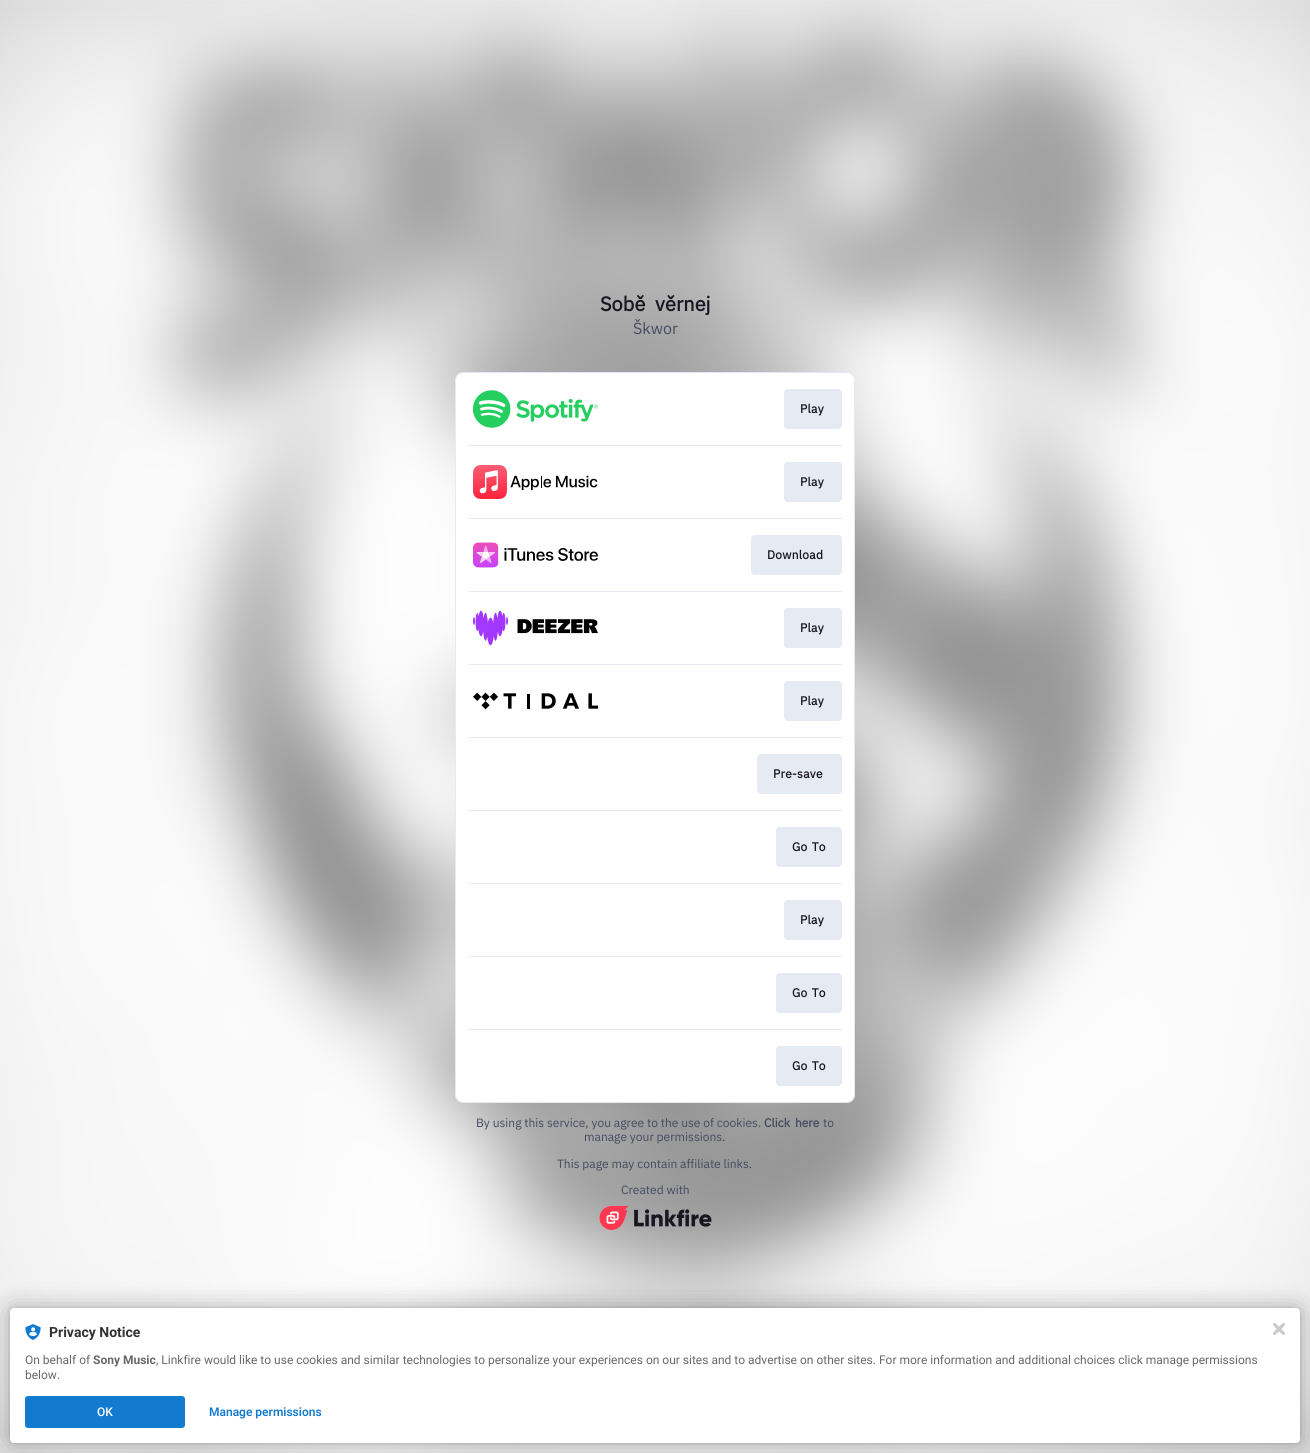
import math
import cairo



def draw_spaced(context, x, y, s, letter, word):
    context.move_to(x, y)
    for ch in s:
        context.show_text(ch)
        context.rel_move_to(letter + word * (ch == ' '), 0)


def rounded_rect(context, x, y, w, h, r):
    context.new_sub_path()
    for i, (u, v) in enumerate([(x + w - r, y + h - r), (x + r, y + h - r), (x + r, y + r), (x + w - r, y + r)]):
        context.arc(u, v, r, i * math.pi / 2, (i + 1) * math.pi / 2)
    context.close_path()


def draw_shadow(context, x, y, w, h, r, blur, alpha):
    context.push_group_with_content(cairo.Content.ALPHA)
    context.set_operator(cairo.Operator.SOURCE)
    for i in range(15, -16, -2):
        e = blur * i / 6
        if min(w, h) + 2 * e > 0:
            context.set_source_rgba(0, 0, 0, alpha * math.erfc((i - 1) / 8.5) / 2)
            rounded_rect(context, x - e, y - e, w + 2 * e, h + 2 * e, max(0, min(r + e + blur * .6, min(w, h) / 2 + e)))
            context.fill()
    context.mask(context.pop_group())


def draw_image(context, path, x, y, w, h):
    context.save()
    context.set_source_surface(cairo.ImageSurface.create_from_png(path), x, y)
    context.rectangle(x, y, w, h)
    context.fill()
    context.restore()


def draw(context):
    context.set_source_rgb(1, 1, 1)
    context.paint()
    draw_image(context, "images/1.png", 0, 0, 1310, 1453)
    rounded_rect(context, 455.5, 372.5, 399, 730, 7.5)
    context.set_source_rgb(230 / 255, 234 / 255, 242 / 255)
    context.set_line_width(1)
    context.stroke()
    context.set_source_rgb(1, 1, 1)
    rounded_rect(context, 456, 373, 398, 729, 7)
    context.fill()
    draw_image(context, "images/2.png", 473, 390, 125, 38)
    context.set_source_rgb(230 / 255, 234 / 255, 242 / 255)
    rounded_rect(context, 784, 389, 58, 40, 4)
    context.fill()
    context.rectangle(468, 445, 374, 1)
    context.fill()
    draw_image(context, "images/3.png", 473, 465, 125, 34)
    rounded_rect(context, 784, 462, 58, 40, 4)
    context.fill()
    context.rectangle(468, 518, 374, 1)
    context.fill()
    draw_image(context, "images/4.png", 473, 542, 125, 26)
    rounded_rect(context, 751, 535, 91, 40, 4)
    context.fill()
    context.rectangle(468, 591, 374, 1)
    context.fill()
    draw_image(context, "images/5.png", 473, 610, 125, 36)
    rounded_rect(context, 784, 608, 58, 40, 4)
    context.fill()
    context.rectangle(468, 664, 374, 1)
    context.fill()
    draw_image(context, "images/6.png", 473, 692, 125, 18)
    rounded_rect(context, 784, 681, 58, 40, 4)
    context.fill()
    context.rectangle(468, 737, 374, 1)
    context.fill()
    rounded_rect(context, 757, 754, 85, 40, 4)
    context.fill()
    context.rectangle(468, 810, 374, 1)
    context.fill()
    rounded_rect(context, 776, 827, 66, 40, 4)
    context.fill()
    context.rectangle(468, 883, 374, 1)
    context.fill()
    rounded_rect(context, 784, 900, 58, 40, 4)
    context.fill()
    context.rectangle(468, 956, 374, 1)
    context.fill()
    rounded_rect(context, 776, 973, 66, 40, 4)
    context.fill()
    context.rectangle(468, 1029, 374, 1)
    context.fill()
    rounded_rect(context, 776, 1046, 66, 40, 4)
    context.fill()
    draw_image(context, "images/7.png", 599, 1206, 113, 24)
    context.set_source_rgb(0, 0, 0)
    draw_shadow(context, 10, 1308, 1290, 135, 4, 2, 0.12)
    draw_shadow(context, 10, 1308, 1290, 135, 4, 12, 0.3)
    context.set_source_rgb(1, 1, 1)
    rounded_rect(context, 10, 1308, 1290, 135, 4)
    context.fill()
    draw_image(context, "images/8.png", 25, 1324, 16, 16)
    context.set_source_rgb(19 / 255, 123 / 255, 207 / 255)
    rounded_rect(context, 25, 1396, 160, 32, 3)
    context.fill()
    draw_image(context, "images/9.png", 1273, 1323, 12, 12)
    context.select_font_face("IBM Plex Sans", cairo.FontSlant.NORMAL, cairo.FontWeight.BOLD)
    context.set_font_size(20)
    context.set_source_rgb(24 / 255, 23 / 255, 33 / 255)
    draw_spaced(context, 600, 311, "Sobě věrnej", 0, 5)
    context.select_font_face("IBM Plex Sans")
    context.set_font_size(16)
    context.set_source_rgb(69 / 255, 75 / 255, 95 / 255)
    context.move_to(633, 334)
    context.show_text("Škwor")
    context.select_font_face("IBM Plex Sans", cairo.FontSlant.NORMAL, cairo.FontWeight.BOLD)
    context.set_font_size(12)
    context.set_source_rgb(24 / 255, 23 / 255, 33 / 255)
    draw_spaced(context, 800, 413, "Play", 0.25, 0)
    draw_spaced(context, 800, 486, "Play", 0.25, 0)
    draw_spaced(context, 767, 559, "Download", 0.25, 0)
    draw_spaced(context, 800, 632, "Play", 0.25, 0)
    draw_spaced(context, 800, 705, "Play", 0.25, 0)
    draw_spaced(context, 773, 778, "Pre-save", 0.25, 0)
    draw_spaced(context, 792, 851, "Go To", 0.25, 1)
    draw_spaced(context, 800, 924, "Play", 0.25, 0)
    draw_spaced(context, 792, 997, "Go To", 0.25, 1)
    draw_spaced(context, 792, 1070, "Go To", 0.25, 1)
    context.select_font_face("IBM Plex Sans")
    context.set_source_rgb(69 / 255, 75 / 255, 95 / 255)
    context.move_to(476, 1127)
    context.show_text("By using this service, you agree to the use of cookies.")
    context.select_font_face("IBM Plex Sans", cairo.FontSlant.NORMAL, cairo.FontWeight.BOLD)
    draw_spaced(context, 764, 1127, "Click here", 0, 2)
    context.select_font_face("IBM Plex Sans")
    context.move_to(823, 1127)
    context.show_text("to")
    context.move_to(584, 1141)
    context.show_text("manage your permissions.")
    context.move_to(557, 1168)
    context.show_text("This page may contain affiliate links.")
    context.move_to(621, 1194)
    context.show_text("Created with")
    context.select_font_face("Roboto", cairo.FontSlant.NORMAL, cairo.FontWeight.BOLD)
    context.set_font_size(14)
    context.set_source_rgb(50 / 255, 50 / 255, 50 / 255)
    context.move_to(49, 1337)
    context.show_text("Privacy Notice")
    context.select_font_face("Roboto")
    context.set_font_size(12)
    context.set_source_rgb(104 / 255, 104 / 255, 104 / 255)
    context.move_to(25, 1364)
    context.show_text("On behalf of")
    context.select_font_face("Roboto", cairo.FontSlant.NORMAL, cairo.FontWeight.BOLD)
    context.move_to(93, 1364)
    context.show_text("Sony Music")
    context.select_font_face("Roboto")
    context.move_to(156, 1364)
    context.show_text(", Linkfire would like to use cookies and similar technologies to personalize your experiences on our sites and to advertise on other sites. For more information and additional choices click manage permissions")
    context.move_to(25, 1379)
    context.show_text("below.")
    context.select_font_face("Roboto Medium")
    context.set_source_rgb(1, 1, 1)
    context.move_to(97, 1416)
    context.show_text("OK")
    context.select_font_face("Roboto SemiBold")
    context.set_source_rgb(19 / 255, 123 / 255, 207 / 255)
    context.move_to(209, 1416)
    context.show_text("Manage permissions")


surface = cairo.ImageSurface(cairo.Format.RGB24, 1310, 1453)
context = cairo.Context(surface)
options = cairo.FontOptions()
options.set_hint_metrics(cairo.HintMetrics.OFF)
options.set_hint_style(cairo.HintStyle.NONE)
context.set_font_options(options)
context.set_miter_limit(4)
draw(context)
surface.write_to_png("out.png")
